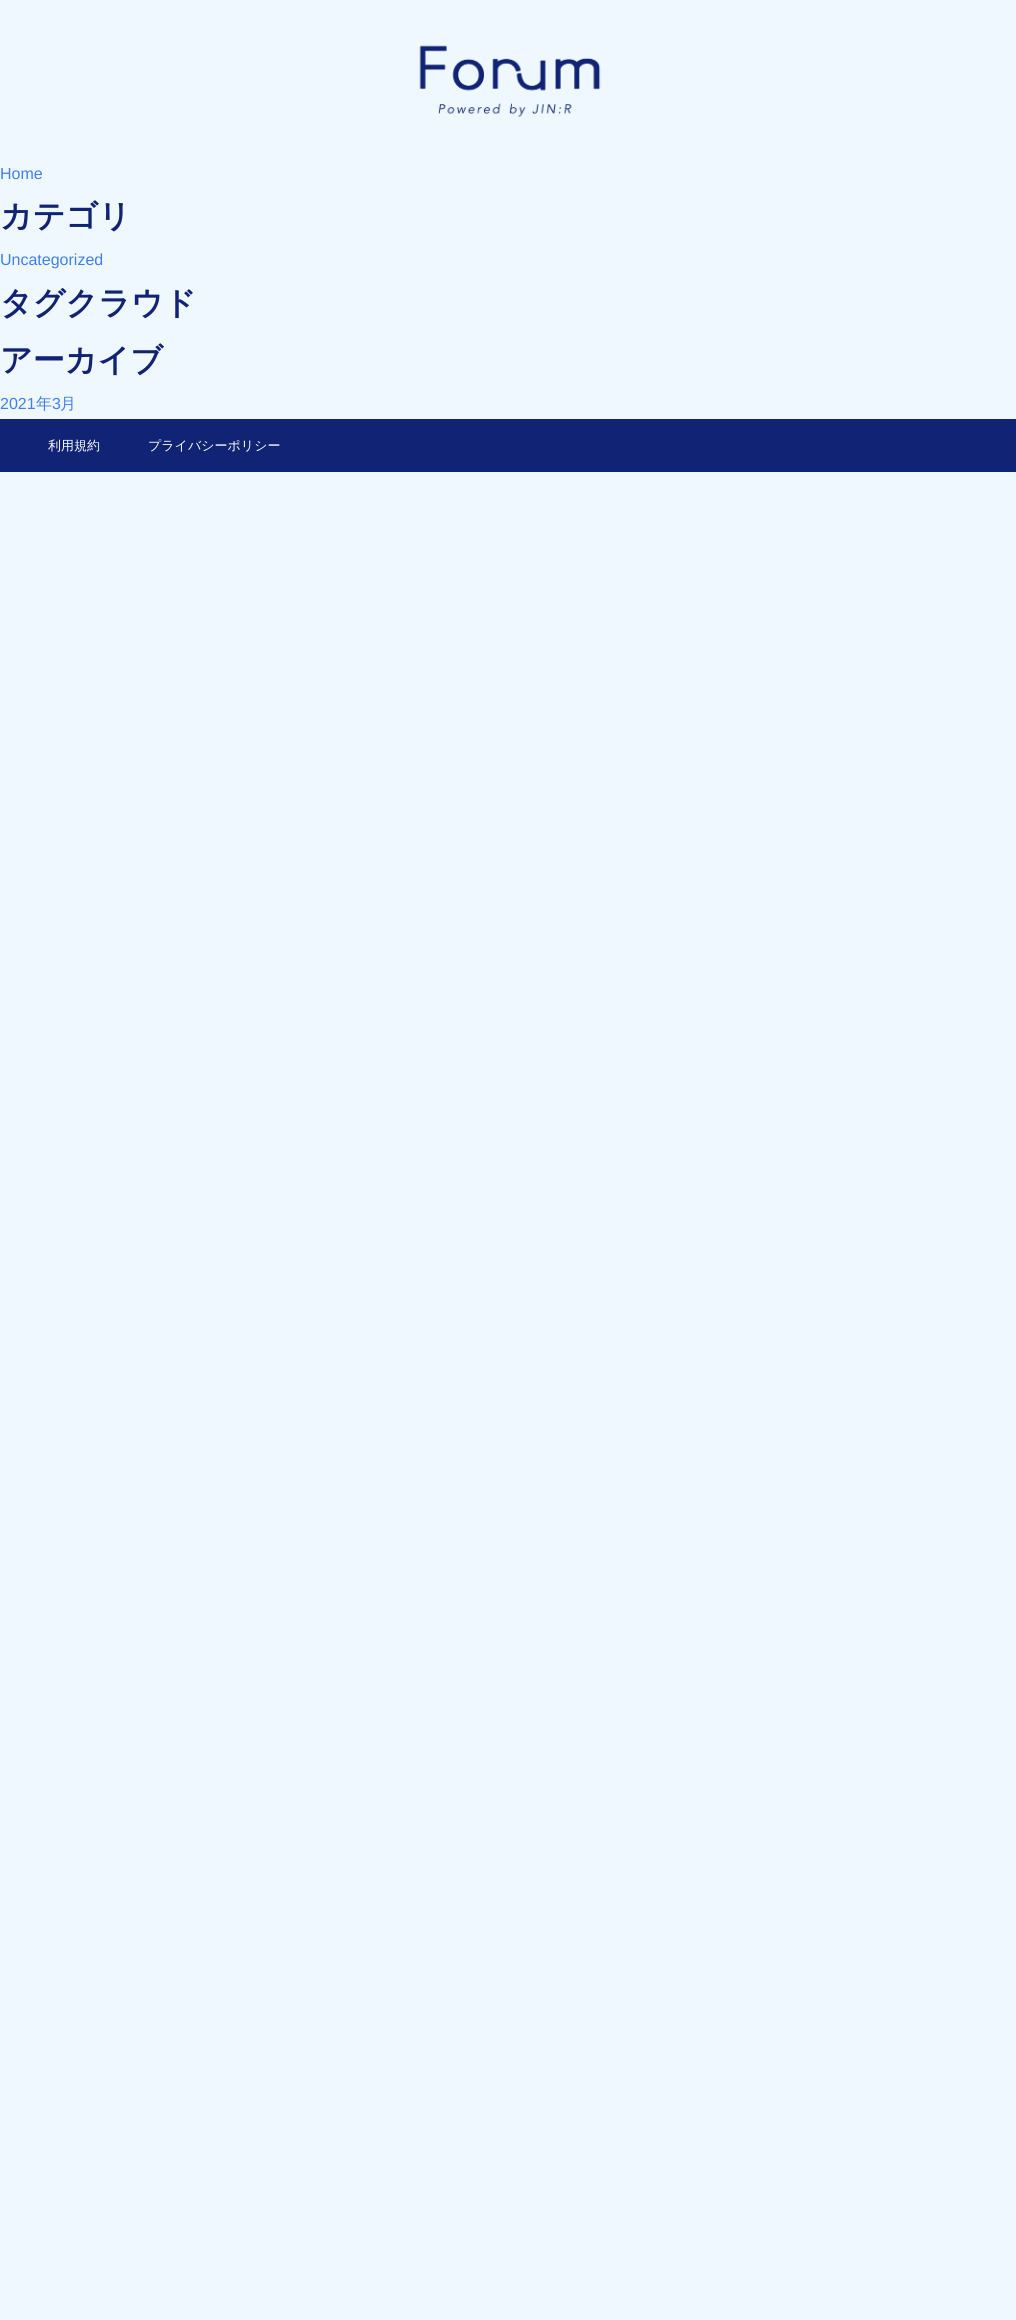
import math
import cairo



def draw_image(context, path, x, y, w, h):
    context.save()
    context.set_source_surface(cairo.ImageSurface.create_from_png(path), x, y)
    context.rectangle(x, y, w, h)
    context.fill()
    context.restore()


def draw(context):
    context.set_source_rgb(239 / 255, 248 / 255, 1)
    context.paint()
    draw_image(context, "images/1.png", 419, 45, 182, 72)
    context.set_source_rgb(17 / 255, 35 / 255, 116 / 255)
    context.rectangle(0, 419, 1016, 53)
    context.fill()
    context.select_font_face("Liberation Sans")
    context.set_font_size(16)
    context.set_source_rgb(64 / 255, 127 / 255, 237 / 255)
    context.move_to(0, 179)
    context.show_text("Home")
    context.select_font_face("WenQuanYi Zen Hei", cairo.FontSlant.NORMAL, cairo.FontWeight.BOLD)
    context.set_font_size(32)
    context.set_source_rgb(17 / 255, 35 / 255, 117 / 255)
    context.move_to(0, 227)
    context.show_text("カテゴリ")
    context.select_font_face("Liberation Sans")
    context.set_font_size(16)
    context.set_source_rgb(64 / 255, 127 / 255, 237 / 255)
    context.move_to(0, 265)
    context.show_text("Uncategorized")
    context.select_font_face("WenQuanYi Zen Hei", cairo.FontSlant.NORMAL, cairo.FontWeight.BOLD)
    context.set_font_size(32)
    context.set_source_rgb(17 / 255, 35 / 255, 117 / 255)
    context.move_to(0, 314)
    context.show_text("タグクラウド")
    context.move_to(0, 371)
    context.show_text("アーカイブ")
    context.select_font_face("Liberation Sans")
    context.set_font_size(16)
    context.set_source_rgb(64 / 255, 127 / 255, 237 / 255)
    context.move_to(0, 409)
    context.show_text("2021")
    context.select_font_face("WenQuanYi Zen Hei Medium")
    context.move_to(36, 409)
    context.show_text("年")
    context.select_font_face("Liberation Sans")
    context.move_to(52, 409)
    context.show_text("3")
    context.select_font_face("WenQuanYi Zen Hei Medium")
    context.move_to(60, 409)
    context.show_text("月")
    context.set_font_size(13)
    context.set_source_rgb(1, 1, 1)
    context.move_to(48, 450)
    context.show_text("利用規約")
    context.move_to(148, 450)
    context.show_text("プライバシーポリシー")


surface = cairo.ImageSurface(cairo.Format.RGB24, 1016, 2320)
context = cairo.Context(surface)
options = cairo.FontOptions()
options.set_hint_metrics(cairo.HintMetrics.OFF)
options.set_hint_style(cairo.HintStyle.NONE)
context.set_font_options(options)
context.set_miter_limit(4)
draw(context)
surface.write_to_png("out.png")
